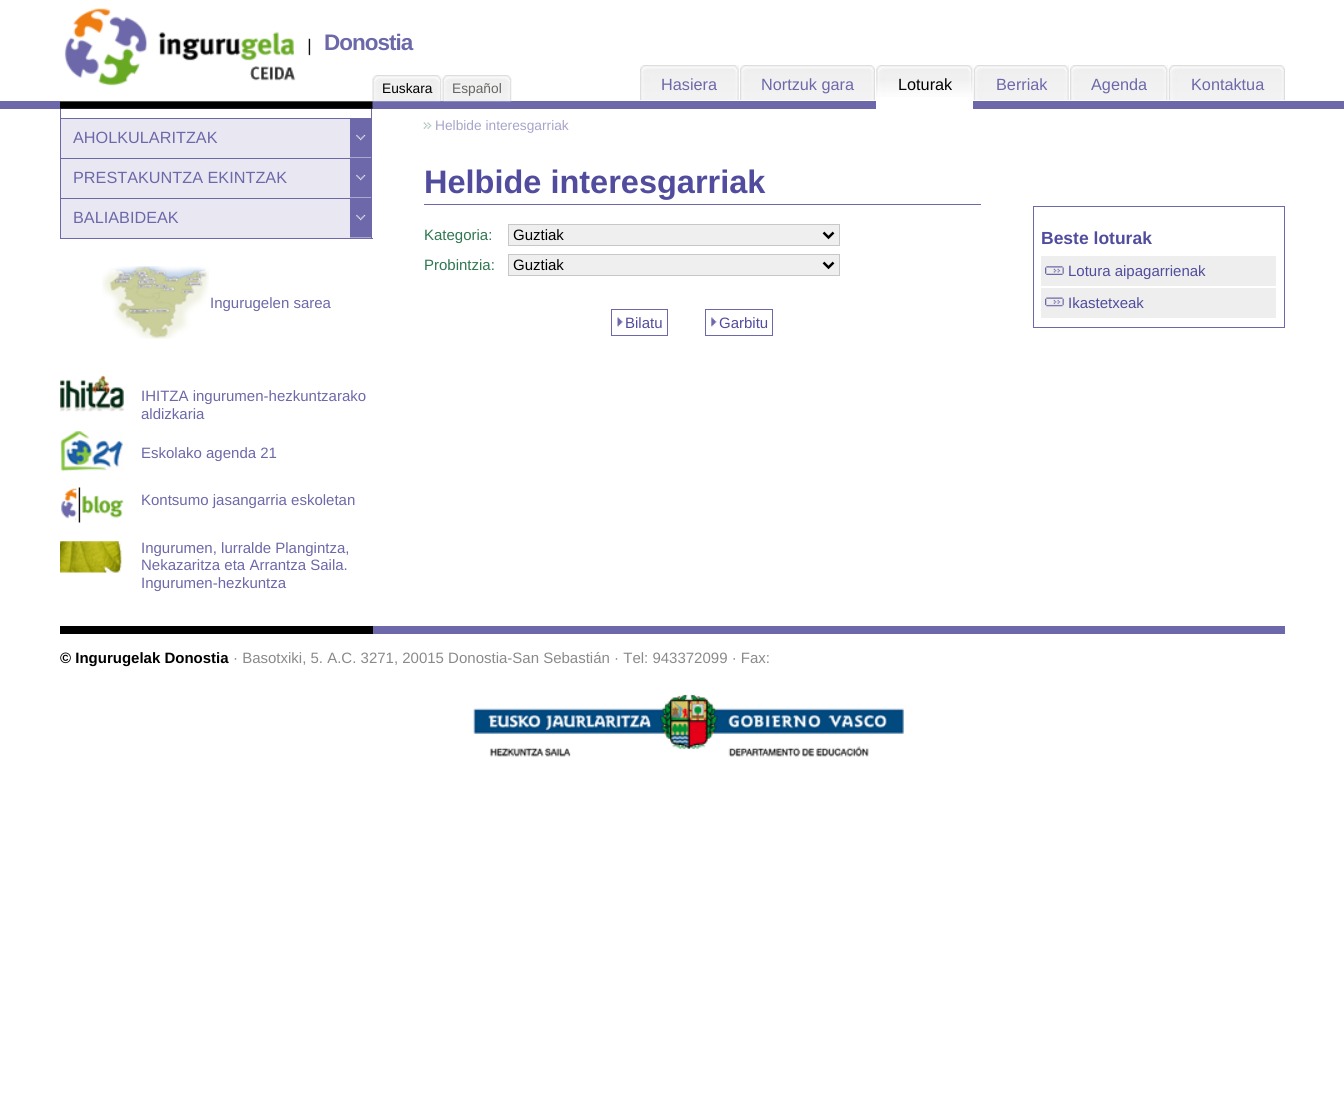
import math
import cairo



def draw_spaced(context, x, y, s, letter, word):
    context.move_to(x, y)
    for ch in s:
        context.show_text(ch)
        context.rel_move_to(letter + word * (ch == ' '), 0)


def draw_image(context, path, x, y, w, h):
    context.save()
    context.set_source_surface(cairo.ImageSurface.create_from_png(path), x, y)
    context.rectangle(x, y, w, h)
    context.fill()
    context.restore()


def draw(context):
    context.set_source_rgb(1, 1, 1)
    context.paint()
    context.set_source_rgb(108 / 255, 104 / 255, 169 / 255)
    context.rectangle(0, 101, 1344, 8)
    context.fill()
    draw_image(context, "images/1.png", 60, 8, 313, 101)
    draw_image(context, "images/2.png", 372, 75, 70, 27)
    draw_image(context, "images/3.png", 442, 75, 70, 27)
    draw_image(context, "images/4.png", 640, 65, 99, 35)
    draw_image(context, "images/5.png", 734, 65, 5, 35)
    draw_image(context, "images/6.png", 740, 65, 130, 35)
    draw_image(context, "images/7.png", 870, 65, 5, 35)
    context.set_source_rgb(1, 1, 1)
    context.rectangle(876, 101, 97, 8)
    context.fill()
    draw_image(context, "images/8.png", 876, 65, 97, 32)
    draw_image(context, "images/9.png", 968, 65, 5, 28)
    draw_image(context, "images/10.png", 973, 65, 96, 35)
    draw_image(context, "images/11.png", 1064, 65, 5, 35)
    draw_image(context, "images/12.png", 1070, 65, 98, 35)
    draw_image(context, "images/13.png", 1163, 65, 5, 35)
    draw_image(context, "images/14.png", 1168, 65, 112, 35)
    draw_image(context, "images/7.png", 1280, 65, 5, 35)
    context.set_source_rgb(108 / 255, 104 / 255, 169 / 255)
    context.rectangle(371, 109, 1, 130)
    context.fill()
    context.rectangle(60, 238, 313, 1)
    context.fill()
    context.rectangle(60, 109, 1, 130)
    context.fill()
    context.set_source_rgb(233 / 255, 232 / 255, 242 / 255)
    context.rectangle(61, 119, 310, 39)
    context.fill()
    draw_image(context, "images/15.png", 350, 119, 21, 39)
    context.set_source_rgb(108 / 255, 104 / 255, 169 / 255)
    context.rectangle(61, 118, 310, 1)
    context.fill()
    context.set_source_rgb(233 / 255, 232 / 255, 242 / 255)
    context.rectangle(61, 159, 310, 39)
    context.fill()
    draw_image(context, "images/15.png", 350, 159, 21, 39)
    context.set_source_rgb(108 / 255, 104 / 255, 169 / 255)
    context.rectangle(61, 158, 310, 1)
    context.fill()
    context.set_source_rgb(233 / 255, 232 / 255, 242 / 255)
    context.rectangle(61, 199, 310, 39)
    context.fill()
    draw_image(context, "images/15.png", 350, 199, 21, 39)
    context.set_source_rgb(108 / 255, 104 / 255, 169 / 255)
    context.rectangle(61, 198, 310, 1)
    context.fill()
    draw_image(context, "images/16.png", 102, 266, 107, 73)
    draw_image(context, "images/17.png", 60, 375, 64, 37)
    draw_image(context, "images/18.png", 60, 431, 63, 41)
    draw_image(context, "images/19.png", 61, 487, 63, 36)
    draw_image(context, "images/20.png", 60, 541, 62, 32)
    draw_image(context, "images/21.png", 423, 122, 9, 7)
    context.rectangle(424, 204, 557, 1)
    context.fill()
    context.set_source_rgb(239 / 255, 239 / 255, 239 / 255)
    context.rectangle(508.5, 224.5, 331, 21)
    context.fill_preserve()
    context.set_source_rgb(199 / 255, 199 / 255, 199 / 255)
    context.set_line_width(1)
    context.stroke()
    context.new_path()
    context.move_to(823.5, 232.5)
    context.line_to(828.5, 237.5)
    context.line_to(833.5, 232.5)
    context.set_source_rgb(0, 0, 0)
    context.set_line_width(2.5)
    context.stroke()
    context.set_source_rgb(239 / 255, 239 / 255, 239 / 255)
    context.rectangle(508.5, 254.5, 331, 21)
    context.fill_preserve()
    context.set_source_rgb(199 / 255, 199 / 255, 199 / 255)
    context.set_line_width(1)
    context.stroke()
    context.new_path()
    context.move_to(823.5, 262.5)
    context.line_to(828.5, 267.5)
    context.line_to(833.5, 262.5)
    context.set_source_rgb(0, 0, 0)
    context.set_line_width(2.5)
    context.stroke()
    draw_image(context, "images/22.png", 617, 317, 6, 10)
    context.rectangle(611.5, 309.5, 56, 26)
    context.set_source_rgb(108 / 255, 104 / 255, 169 / 255)
    context.set_line_width(1)
    context.stroke()
    draw_image(context, "images/23.png", 711, 317, 6, 10)
    context.rectangle(705.5, 309.5, 67, 26)
    context.stroke()
    context.rectangle(1033.5, 206.5, 251, 121)
    context.stroke()
    context.set_source_rgb(238 / 255, 238 / 255, 238 / 255)
    context.rectangle(1041, 256, 235, 30)
    context.fill()
    draw_image(context, "images/24.png", 1045, 266, 19, 9)
    context.rectangle(1041, 288, 235, 30)
    context.fill()
    draw_image(context, "images/25.png", 1045, 297, 19, 10)
    context.set_source_rgb(0, 0, 0)
    context.rectangle(60, 626, 313, 8)
    context.fill()
    context.set_source_rgb(108 / 255, 104 / 255, 169 / 255)
    context.rectangle(373, 626, 912, 8)
    context.fill()
    draw_image(context, "images/26.png", 473, 694, 431, 63)
    context.select_font_face("Liberation Sans", cairo.FontSlant.NORMAL, cairo.FontWeight.BOLD)
    context.set_font_size(22.5)
    draw_spaced(context, 324, 50, "Donostia", -1, 0)
    context.select_font_face("Liberation Sans")
    context.set_font_size(13.75)
    context.set_source_rgb(0, 0, 0)
    context.move_to(382, 93)
    context.show_text("Euskara")
    context.set_source_rgb(103 / 255, 101 / 255, 98 / 255)
    context.move_to(452, 93)
    context.show_text("Español")
    context.set_font_size(16.25)
    context.set_source_rgb(108 / 255, 104 / 255, 169 / 255)
    context.move_to(661, 90)
    context.show_text("Hasiera")
    context.move_to(761, 90)
    context.show_text("Nortzuk gara")
    context.set_source_rgb(0, 0, 0)
    context.move_to(898, 90)
    context.show_text("Loturak")
    context.set_source_rgb(108 / 255, 104 / 255, 169 / 255)
    context.move_to(996, 90)
    context.show_text("Berriak")
    context.move_to(1091, 90)
    context.show_text("Agenda")
    context.move_to(1191, 90)
    context.show_text("Kontaktua")
    context.move_to(73, 143)
    context.show_text("AHOLKULARITZAK")
    context.move_to(73, 183)
    context.show_text("PRESTAKUNTZA EKINTZAK")
    context.move_to(73, 223)
    context.show_text("BALIABIDEAK")
    context.set_font_size(15)
    context.move_to(210, 308)
    context.show_text("Ingurugelen sarea")
    context.move_to(141, 401)
    context.show_text("IHITZA ingurumen-hezkuntzarako")
    context.move_to(141, 419)
    context.show_text("aldizkaria")
    context.move_to(141, 458)
    context.show_text("Eskolako agenda 21")
    context.move_to(141, 505)
    context.show_text("Kontsumo jasangarria eskoletan")
    context.move_to(141, 553)
    context.show_text("Ingurumen, lurralde Plangintza,")
    context.move_to(141, 570)
    context.show_text("Nekazaritza eta Arrantza Saila.")
    context.move_to(141, 588)
    context.show_text("Ingurumen-hezkuntza")
    context.set_font_size(13.75)
    context.set_source_rgb(167 / 255, 164 / 255, 203 / 255)
    context.move_to(435, 130)
    context.show_text("Helbide interesgarriak")
    context.select_font_face("Liberation Sans", cairo.FontSlant.NORMAL, cairo.FontWeight.BOLD)
    context.set_font_size(32.5)
    context.set_source_rgb(81 / 255, 76 / 255, 157 / 255)
    context.move_to(424, 193)
    context.show_text("Helbide interesgarriak")
    context.select_font_face("Liberation Sans")
    context.set_font_size(15)
    context.set_source_rgb(48 / 255, 118 / 255, 80 / 255)
    context.move_to(424, 240)
    context.show_text("Kategoria:")
    context.set_source_rgb(0, 0, 0)
    context.move_to(513, 240)
    context.show_text("Guztiak")
    context.set_source_rgb(48 / 255, 118 / 255, 80 / 255)
    context.move_to(424, 270)
    context.show_text("Probintzia:")
    context.set_source_rgb(0, 0, 0)
    context.move_to(513, 270)
    context.show_text("Guztiak")
    context.set_source_rgb(81 / 255, 76 / 255, 157 / 255)
    context.move_to(625, 328)
    context.show_text("Bilatu")
    context.move_to(719, 328)
    context.show_text("Garbitu")
    context.select_font_face("Liberation Sans", cairo.FontSlant.NORMAL, cairo.FontWeight.BOLD)
    context.set_font_size(17.5)
    context.move_to(1041, 244)
    context.show_text("Beste loturak")
    context.select_font_face("Liberation Sans")
    context.set_font_size(15)
    context.move_to(1068, 276)
    context.show_text("Lotura aipagarrienak")
    context.move_to(1068, 308)
    context.show_text("Ikastetxeak")
    context.select_font_face("Liberation Sans", cairo.FontSlant.NORMAL, cairo.FontWeight.BOLD)
    context.set_source_rgb(0, 0, 0)
    context.move_to(60, 663)
    context.show_text("© Ingurugelak Donostia")
    context.select_font_face("Liberation Sans")
    context.set_source_rgb(138 / 255, 138 / 255, 138 / 255)
    context.move_to(233, 663)
    context.show_text("· Basotxiki, 5. A.C. 3271, 20015 Donostia-San Sebastián · Tel: 943372099 · Fax:")


surface = cairo.ImageSurface(cairo.Format.RGB24, 1344, 1103)
context = cairo.Context(surface)
options = cairo.FontOptions()
options.set_hint_metrics(cairo.HintMetrics.OFF)
options.set_hint_style(cairo.HintStyle.NONE)
context.set_font_options(options)
context.set_miter_limit(4)
draw(context)
surface.write_to_png("out.png")
